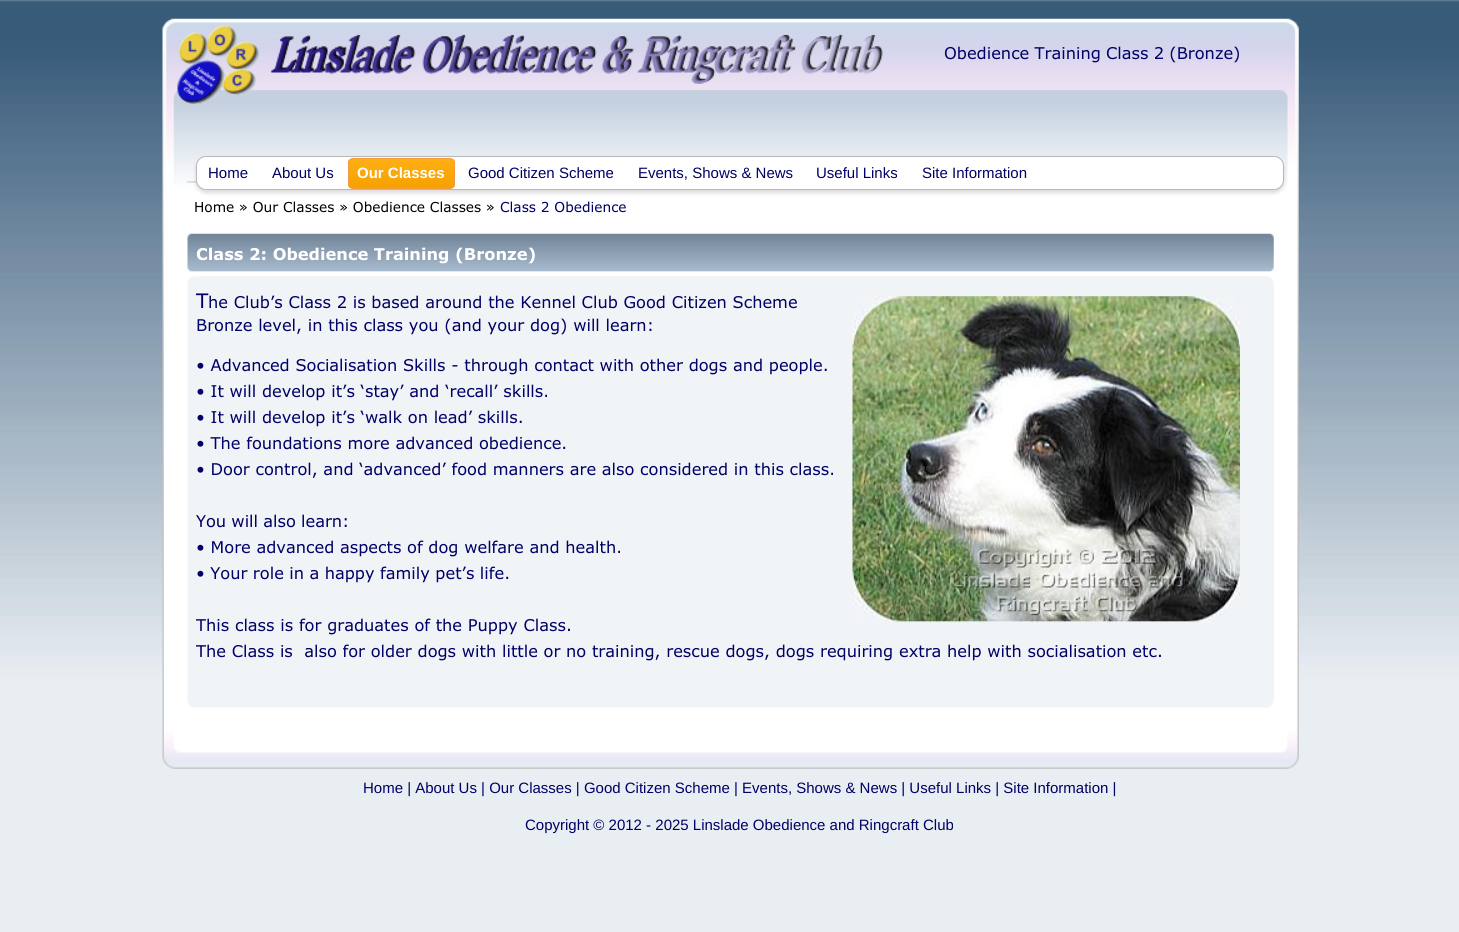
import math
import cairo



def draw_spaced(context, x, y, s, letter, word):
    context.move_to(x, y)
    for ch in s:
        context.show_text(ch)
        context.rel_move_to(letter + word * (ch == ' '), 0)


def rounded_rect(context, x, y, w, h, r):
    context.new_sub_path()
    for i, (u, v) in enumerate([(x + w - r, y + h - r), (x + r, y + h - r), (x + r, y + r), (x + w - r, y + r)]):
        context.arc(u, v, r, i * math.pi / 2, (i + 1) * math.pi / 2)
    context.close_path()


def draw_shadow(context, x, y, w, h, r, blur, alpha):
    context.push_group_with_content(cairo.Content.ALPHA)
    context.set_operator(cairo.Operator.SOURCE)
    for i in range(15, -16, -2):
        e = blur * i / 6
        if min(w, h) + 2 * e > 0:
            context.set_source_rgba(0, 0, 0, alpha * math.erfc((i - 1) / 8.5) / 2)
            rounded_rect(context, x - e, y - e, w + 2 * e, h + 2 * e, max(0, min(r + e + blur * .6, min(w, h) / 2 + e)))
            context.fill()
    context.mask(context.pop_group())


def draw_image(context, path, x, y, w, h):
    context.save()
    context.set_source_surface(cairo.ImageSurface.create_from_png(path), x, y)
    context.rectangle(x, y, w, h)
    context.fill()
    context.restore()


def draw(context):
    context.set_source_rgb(1, 1, 1)
    context.paint()
    draw_image(context, "images/1.png", 0, 0, 1459, 932)
    draw_image(context, "images/2.png", 162, 18, 1137, 751)
    draw_image(context, "images/3.png", 177, 25, 706, 80)
    context.set_source_rgb(0, 0, 0)
    draw_shadow(context, 196, 159, 1088, 34, 10, 2, 0.14)
    context.set_source_rgb(1, 1, 1)
    rounded_rect(context, 196.5, 156.5, 1087, 33, 9.5)
    context.fill_preserve()
    context.set_source_rgb(184 / 255, 184 / 255, 184 / 255)
    context.set_line_width(1)
    context.stroke()
    context.save()
    rounded_rect(context, 348, 158, 107, 31, 5)
    context.clip()
    gradient = cairo.LinearGradient(401, 159, 401, 188)
    gradient.add_color_stop_rgba(0, 1, 174 / 255, 20 / 255, 1)
    gradient.add_color_stop_rgba(1, 245 / 255, 161 / 255, 0, 1)
    context.set_source(gradient)
    context.rectangle(348, 159, 107, 29)
    context.fill()
    context.restore()
    rounded_rect(context, 348.5, 158.5, 106, 30, 4.5)
    context.set_source_rgb(244 / 255, 154 / 255, 58 / 255)
    context.stroke()
    draw_image(context, "images/4.png", 852, 296, 388, 327)
    context.select_font_face("Verdana")
    context.set_font_size(16.25)
    context.set_source_rgb(0, 0, 102 / 255)
    draw_spaced(context, 944, 59, "Obedience Training Class 2 (Bronze)", 0, -0.5)
    context.select_font_face("Liberation Sans")
    context.set_font_size(15)
    context.move_to(208, 178)
    context.show_text("Home")
    context.move_to(272, 178)
    context.show_text("About Us")
    context.select_font_face("Liberation Sans", cairo.FontSlant.NORMAL, cairo.FontWeight.BOLD)
    context.set_source_rgb(1, 1, 1)
    context.move_to(357, 178)
    context.show_text("Our Classes")
    context.select_font_face("Liberation Sans")
    context.set_source_rgb(0, 0, 102 / 255)
    context.move_to(468, 178)
    context.show_text("Good Citizen Scheme")
    context.move_to(638, 178)
    context.show_text("Events, Shows & News")
    context.move_to(816, 178)
    context.show_text("Useful Links")
    context.move_to(922, 178)
    context.show_text("Site Information")
    context.select_font_face("Verdana")
    context.set_font_size(13.75)
    context.set_source_rgb(0, 0, 0)
    context.move_to(194, 212)
    context.show_text("Home » Our Classes » Obedience Classes »")
    context.set_source_rgb(0, 0, 102 / 255)
    context.move_to(500, 212)
    context.show_text("Class 2 Obedience")
    context.select_font_face("Verdana", cairo.FontSlant.NORMAL, cairo.FontWeight.BOLD)
    context.set_font_size(16.25)
    context.set_source_rgb(1, 1, 1)
    context.move_to(196, 260)
    context.show_text("Class 2: Obedience Training (Bronze)")
    context.select_font_face("Verdana")
    context.set_font_size(20)
    context.set_source_rgb(0, 0, 102 / 255)
    context.move_to(196, 308)
    context.show_text("T")
    context.set_font_size(16.25)
    context.move_to(208, 308)
    context.show_text("he Club’s Class 2 is based around the Kennel Club Good Citizen Scheme")
    context.move_to(196, 331)
    context.show_text("Bronze level, in this class you (and your dog) will learn:")
    context.move_to(196, 371)
    context.show_text("• Advanced Socialisation Skills - through contact with other dogs and people.")
    context.move_to(196, 397)
    context.show_text("• It will develop it’s ‘stay’ and ‘recall’ skills.")
    context.move_to(196, 423)
    context.show_text("• It will develop it’s ‘walk on lead’ skills.")
    context.move_to(196, 449)
    context.show_text("• The foundations more advanced obedience.")
    context.move_to(196, 475)
    context.show_text("• Door control, and ‘advanced’ food manners are also considered in this class.")
    draw_spaced(context, 196, 527, "You will also learn:", 0, -0.5)
    context.move_to(196, 553)
    context.show_text("• More advanced aspects of dog welfare and health.")
    draw_spaced(context, 196, 579, "• Your role in a happy family pet’s life.", 0, -0.25)
    context.move_to(196, 631)
    context.show_text("This class is for graduates of the Puppy Class.")
    context.move_to(196, 657)
    context.show_text("The Class is  also for older dogs with little or no training, rescue dogs, dogs requiring extra help with socialisation etc.")
    context.select_font_face("Liberation Sans")
    context.set_font_size(15)
    context.move_to(363, 793)
    context.show_text("Home | About Us | Our Classes | Good Citizen Scheme | Events, Shows & News | Useful Links | Site Information |")
    context.move_to(525, 830)
    context.show_text("Copyright © 2012 - 2025 Linslade Obedience and Ringcraft Club")


surface = cairo.ImageSurface(cairo.Format.RGB24, 1459, 932)
context = cairo.Context(surface)
options = cairo.FontOptions()
options.set_hint_metrics(cairo.HintMetrics.OFF)
options.set_hint_style(cairo.HintStyle.NONE)
context.set_font_options(options)
context.set_miter_limit(4)
draw(context)
surface.write_to_png("out.png")
